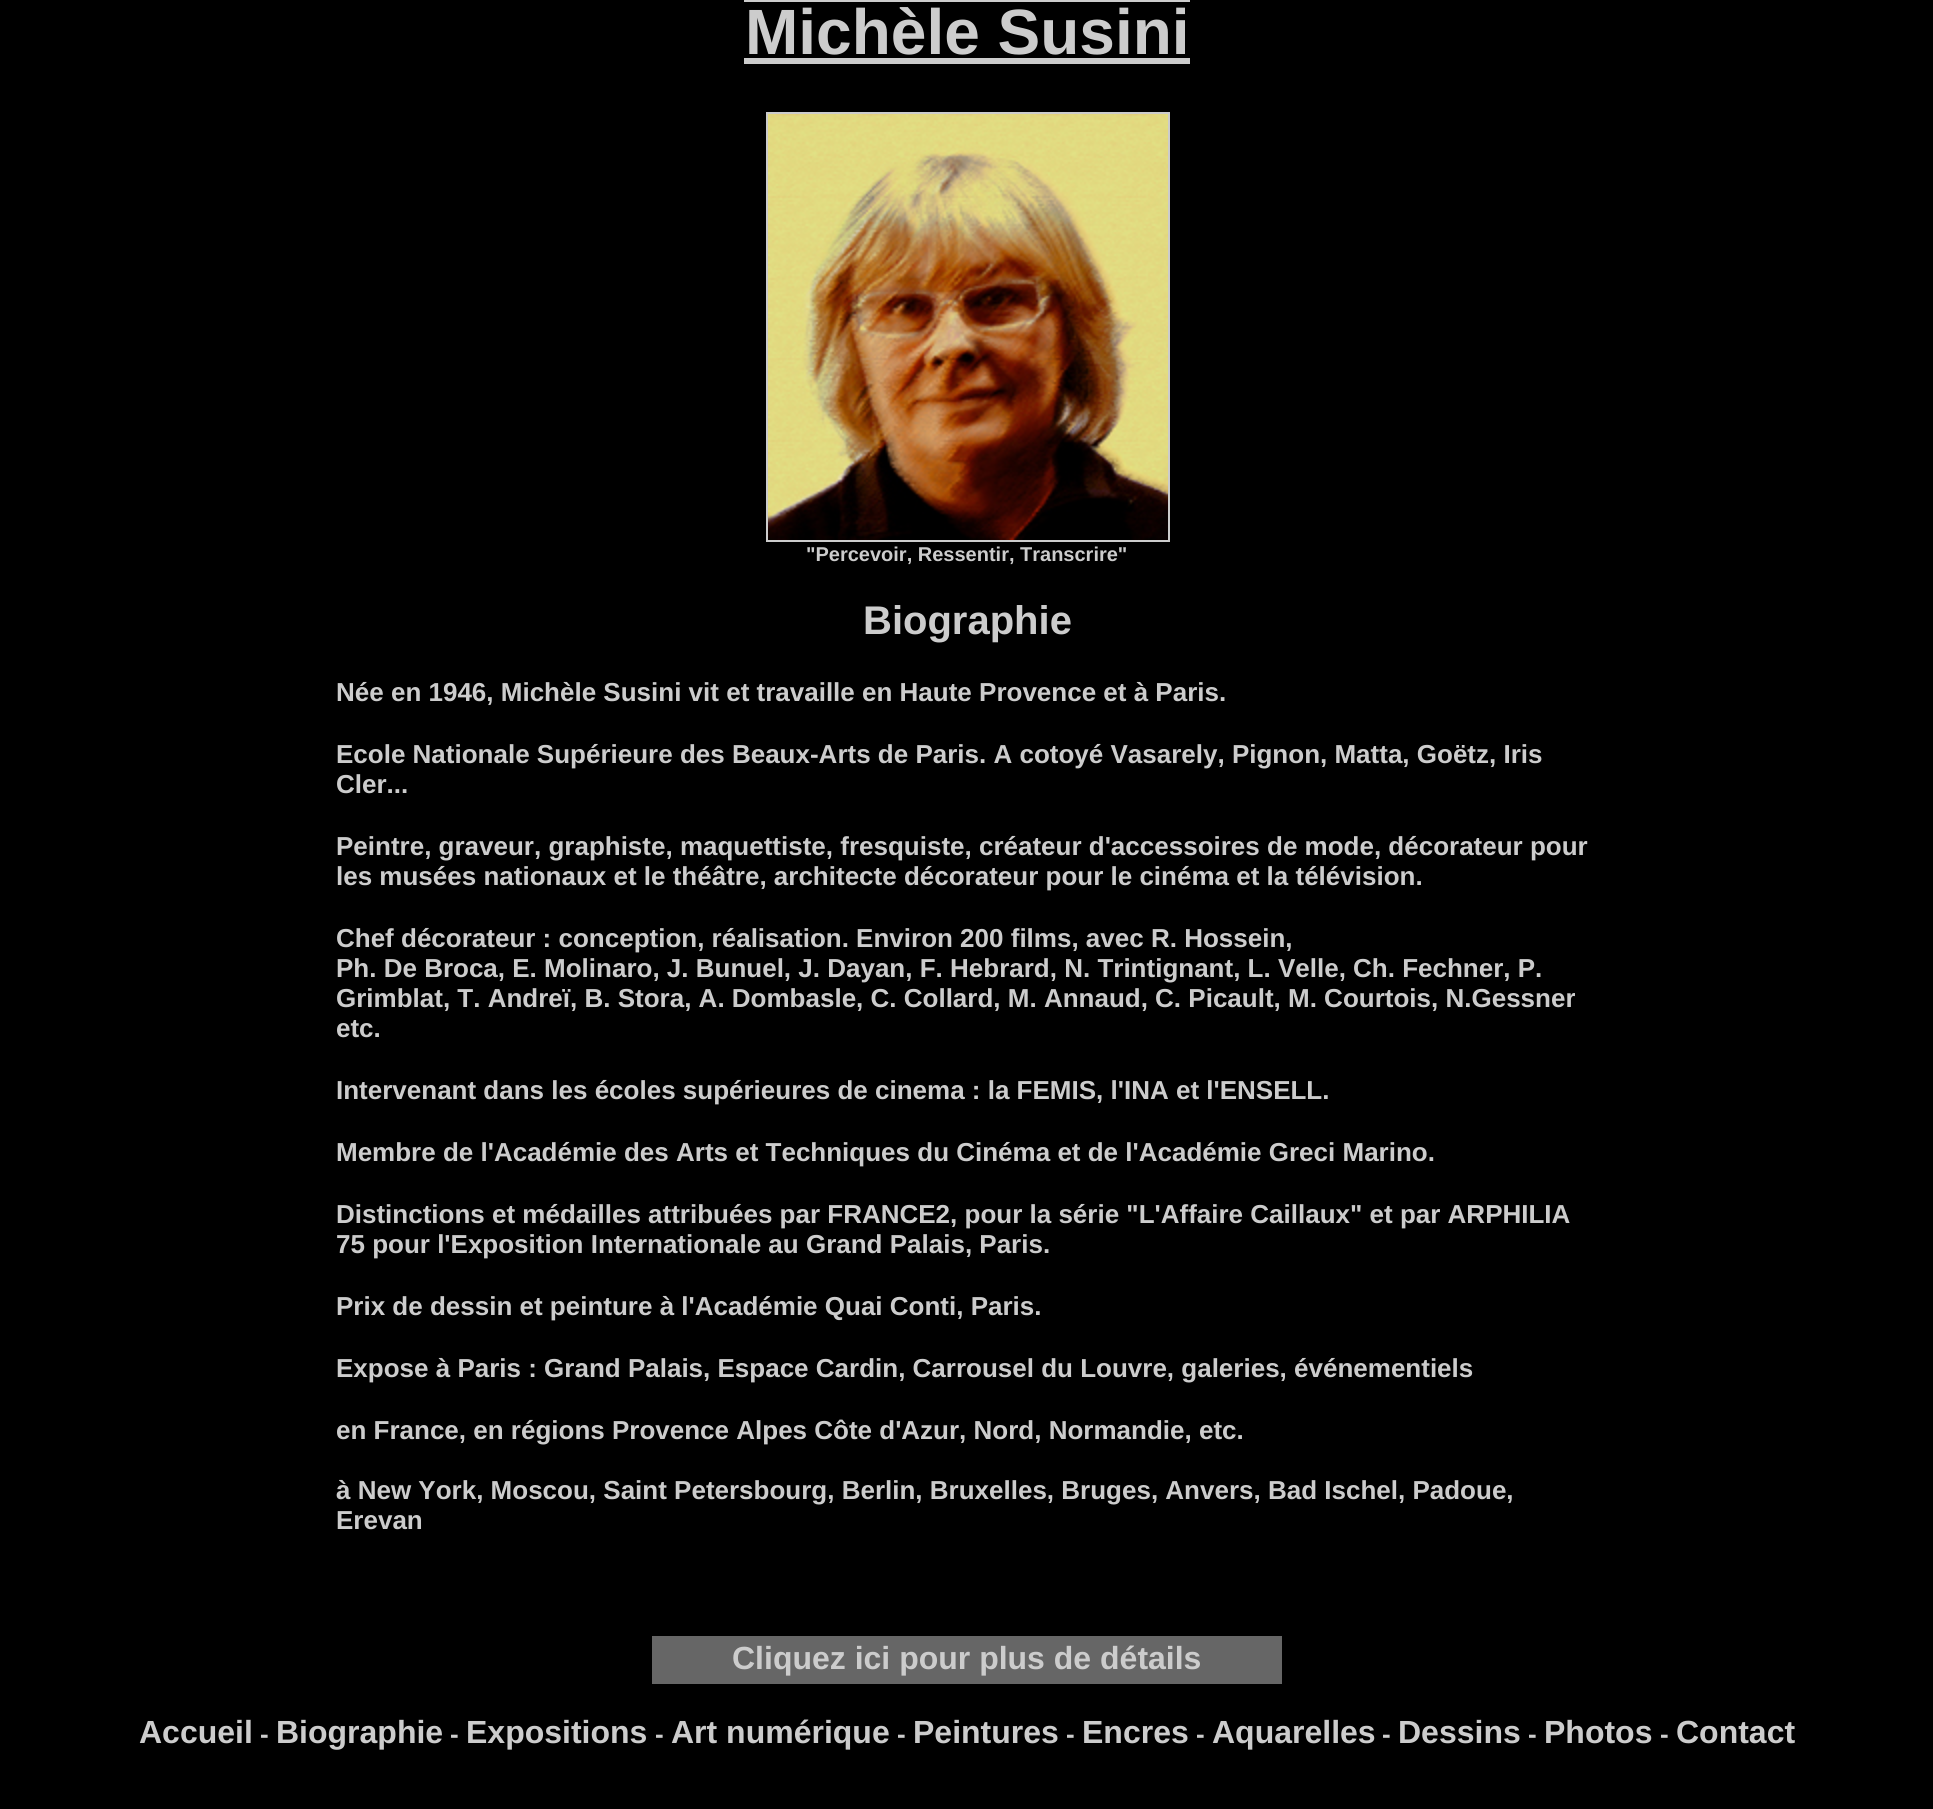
import math
import cairo



def draw_image(context, path, x, y, w, h):
    context.save()
    context.set_source_surface(cairo.ImageSurface.create_from_png(path), x, y)
    context.rectangle(x, y, w, h)
    context.fill()
    context.restore()


def draw(context):
    context.set_source_rgb(0, 0, 0)
    context.paint()
    context.set_source_rgb(204 / 255, 204 / 255, 204 / 255)
    context.rectangle(744, 58, 446, 6)
    context.fill()
    context.rectangle(744, 0, 446, 2)
    context.fill()
    context.rectangle(767, 113, 402, 428)
    context.stroke()
    draw_image(context, "images/1.png", 768, 114, 400, 426)
    context.set_source_rgb(102 / 255, 102 / 255, 102 / 255)
    context.rectangle(652, 1636, 630, 48)
    context.fill()
    context.select_font_face("Liberation Sans", cairo.FontSlant.NORMAL, cairo.FontWeight.BOLD)
    context.set_font_size(64)
    context.set_source_rgb(204 / 255, 204 / 255, 204 / 255)
    context.move_to(745, 54)
    context.show_text("Michèle Susini")
    context.set_font_size(20)
    context.move_to(806, 561)
    context.show_text("\"Percevoir, Ressentir, Transcrire\"")
    context.set_font_size(40)
    context.move_to(863, 634)
    context.show_text("Biographie")
    context.set_font_size(26)
    context.move_to(336, 701)
    context.show_text("Née en 1946, Michèle Susini vit et travaille en Haute Provence et à Paris.")
    context.move_to(336, 763)
    context.show_text("Ecole Nationale Supérieure des Beaux-Arts de Paris. A cotoyé Vasarely, Pignon, Matta, Goëtz, Iris")
    context.move_to(336, 793)
    context.show_text("Cler...")
    context.move_to(336, 855)
    context.show_text("Peintre, graveur, graphiste, maquettiste, fresquiste, créateur d'accessoires de mode, décorateur pour")
    context.move_to(336, 885)
    context.show_text("les musées nationaux et le théâtre, architecte décorateur pour le cinéma et la télévision.")
    context.move_to(336, 947)
    context.show_text("Chef décorateur : conception, réalisation. Environ 200 films, avec R. Hossein,")
    context.move_to(336, 977)
    context.show_text("Ph. De Broca, E. Molinaro, J. Bunuel, J. Dayan, F. Hebrard, N. Trintignant, L. Velle, Ch. Fechner, P.")
    context.move_to(336, 1007)
    context.show_text("Grimblat, T. Andreï, B. Stora, A. Dombasle, C. Collard, M. Annaud, C. Picault, M. Courtois, N.Gessner")
    context.move_to(336, 1037)
    context.show_text("etc.")
    context.move_to(336, 1099)
    context.show_text("Intervenant dans les écoles supérieures de cinema : la FEMIS, l'INA et l'ENSELL.")
    context.move_to(336, 1161)
    context.show_text("Membre de l'Académie des Arts et Techniques du Cinéma et de l'Académie Greci Marino.")
    context.move_to(336, 1223)
    context.show_text("Distinctions et médailles attribuées par FRANCE2, pour la série \"L'Affaire Caillaux\" et par ARPHILIA")
    context.move_to(336, 1253)
    context.show_text("75 pour l'Exposition Internationale au Grand Palais, Paris.")
    context.move_to(336, 1315)
    context.show_text("Prix de dessin et peinture à l'Académie Quai Conti, Paris.")
    context.move_to(336, 1377)
    context.show_text("Expose à Paris : Grand Palais, Espace Cardin, Carrousel du Louvre, galeries, événementiels")
    context.move_to(336, 1439)
    context.show_text("en France, en régions Provence Alpes Côte d'Azur, Nord, Normandie, etc.")
    context.move_to(336, 1499)
    context.show_text("à New York, Moscou, Saint Petersbourg, Berlin, Bruxelles, Bruges, Anvers, Bad Ischel, Padoue,")
    context.move_to(336, 1529)
    context.show_text("Erevan")
    context.set_font_size(32)
    context.move_to(732, 1669)
    context.show_text("Cliquez ici pour plus de détails")
    context.move_to(139, 1743)
    context.show_text("Accueil")
    context.set_font_size(26)
    context.move_to(260, 1743)
    context.show_text("-")
    context.set_font_size(32)
    context.move_to(276, 1743)
    context.show_text("Biographie")
    context.set_font_size(26)
    context.move_to(450, 1743)
    context.show_text("-")
    context.set_font_size(32)
    context.move_to(466, 1743)
    context.show_text("Expositions")
    context.set_font_size(26)
    context.move_to(655, 1743)
    context.show_text("-")
    context.set_font_size(32)
    context.move_to(671, 1743)
    context.show_text("Art numérique")
    context.set_font_size(26)
    context.move_to(897, 1743)
    context.show_text("-")
    context.set_font_size(32)
    context.move_to(913, 1743)
    context.show_text("Peintures")
    context.set_font_size(26)
    context.move_to(1066, 1743)
    context.show_text("-")
    context.set_font_size(32)
    context.move_to(1082, 1743)
    context.show_text("Encres")
    context.set_font_size(26)
    context.move_to(1196, 1743)
    context.show_text("-")
    context.set_font_size(32)
    context.move_to(1212, 1743)
    context.show_text("Aquarelles")
    context.set_font_size(26)
    context.move_to(1382, 1743)
    context.show_text("-")
    context.set_font_size(32)
    context.move_to(1398, 1743)
    context.show_text("Dessins")
    context.set_font_size(26)
    context.move_to(1528, 1743)
    context.show_text("-")
    context.set_font_size(32)
    context.move_to(1544, 1743)
    context.show_text("Photos")
    context.set_font_size(26)
    context.move_to(1660, 1743)
    context.show_text("-")
    context.set_font_size(32)
    context.move_to(1676, 1743)
    context.show_text("Contact")


surface = cairo.ImageSurface(cairo.Format.RGB24, 1933, 1809)
context = cairo.Context(surface)
options = cairo.FontOptions()
options.set_hint_metrics(cairo.HintMetrics.OFF)
options.set_hint_style(cairo.HintStyle.NONE)
context.set_font_options(options)
context.set_miter_limit(4)
draw(context)
surface.write_to_png("out.png")
